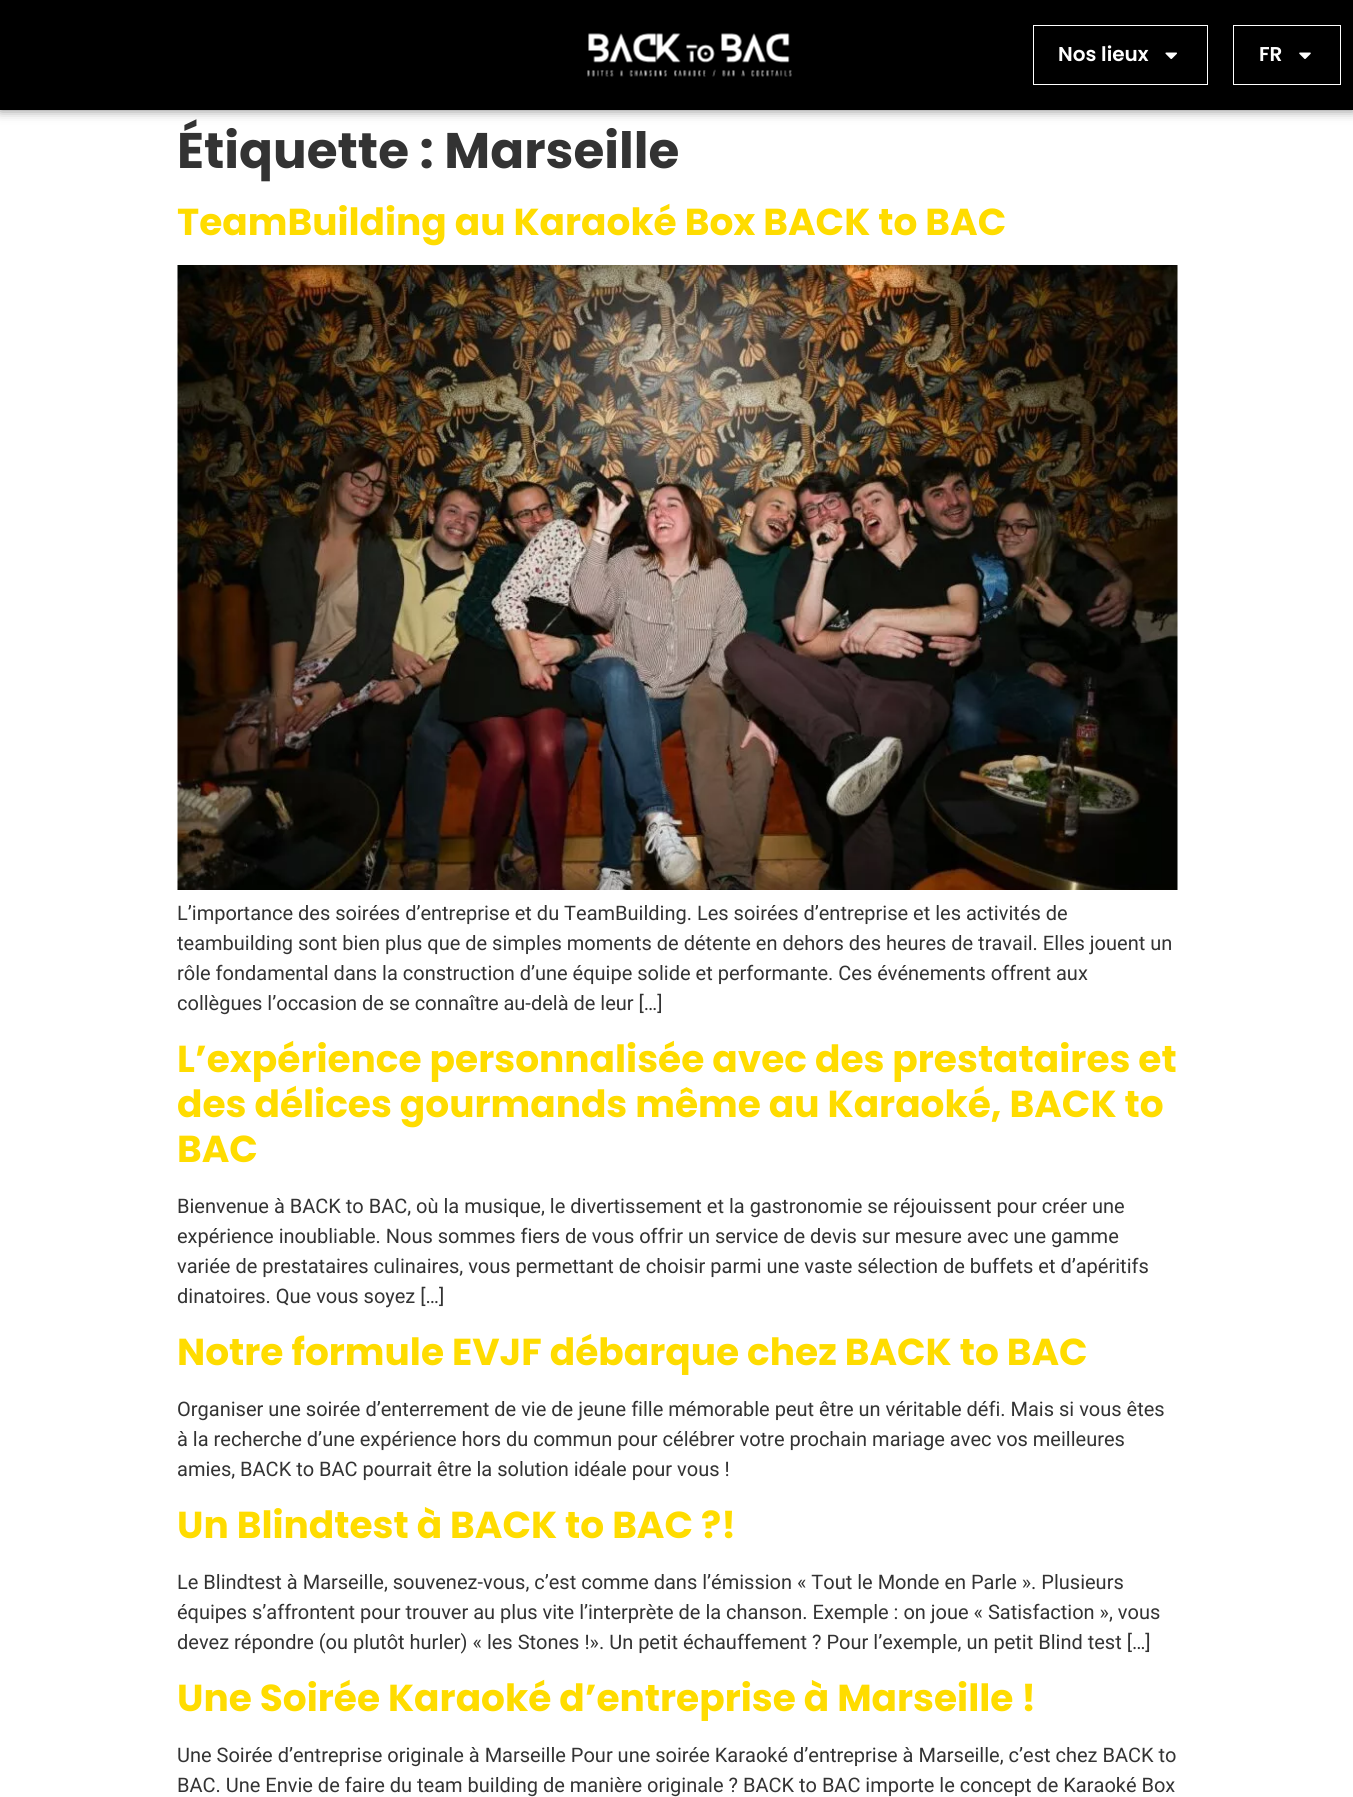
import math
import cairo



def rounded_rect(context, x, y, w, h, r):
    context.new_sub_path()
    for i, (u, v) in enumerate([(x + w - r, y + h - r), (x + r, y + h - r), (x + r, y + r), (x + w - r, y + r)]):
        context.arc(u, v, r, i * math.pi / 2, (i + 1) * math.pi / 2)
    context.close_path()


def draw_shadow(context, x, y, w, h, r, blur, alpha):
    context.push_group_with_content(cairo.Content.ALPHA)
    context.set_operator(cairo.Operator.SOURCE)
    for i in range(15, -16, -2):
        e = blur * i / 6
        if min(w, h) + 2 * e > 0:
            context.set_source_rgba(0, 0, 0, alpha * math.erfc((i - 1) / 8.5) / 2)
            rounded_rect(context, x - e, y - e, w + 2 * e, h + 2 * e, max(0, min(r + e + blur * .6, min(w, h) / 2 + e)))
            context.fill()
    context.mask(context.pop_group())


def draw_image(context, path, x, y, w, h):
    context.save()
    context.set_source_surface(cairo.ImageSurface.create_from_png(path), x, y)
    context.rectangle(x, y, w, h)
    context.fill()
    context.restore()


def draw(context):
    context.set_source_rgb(1, 1, 1)
    context.paint()
    context.set_source_rgb(0, 0, 0)
    draw_shadow(context, 0, 0, 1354, 110, 0, 6, 0.5)
    context.set_source_rgb(0, 0, 0)
    context.rectangle(0, 0, 1353, 110)
    context.fill()
    draw_image(context, "images/1.png", 587, 33, 205, 44)
    context.rectangle(1033.5, 25.5, 174, 59)
    context.set_source_rgb(1, 1, 1)
    context.set_line_width(1)
    context.stroke()
    draw_image(context, "images/2.png", 1165, 52, 12, 7)
    context.rectangle(1233.5, 25.5, 107, 59)
    context.stroke()
    draw_image(context, "images/3.png", 1299, 52, 12, 7)
    draw_image(context, "images/4.png", 177, 265, 1001, 625)
    context.select_font_face("Poppins SemiBold")
    context.set_font_size(20)
    context.move_to(1058, 61)
    context.show_text("Nos lieux")
    context.move_to(1259, 61)
    context.show_text("FR")
    context.select_font_face("Poppins", cairo.FontSlant.NORMAL, cairo.FontWeight.BOLD)
    context.set_font_size(50)
    context.set_source_rgb(51 / 255, 51 / 255, 51 / 255)
    context.move_to(177, 168)
    context.show_text("Étiquette : Marseille")
    context.set_font_size(37.5)
    context.set_source_rgb(1, 220 / 255, 0)
    context.move_to(177, 235)
    context.show_text("TeamBuilding au Karaoké Box BACK to BAC")
    context.select_font_face("Roboto")
    context.set_font_size(20)
    context.set_source_rgb(51 / 255, 51 / 255, 51 / 255)
    context.move_to(177, 920)
    context.show_text("L’importance des soirées d’entreprise et du TeamBuilding. Les soirées d’entreprise et les activités de")
    context.move_to(177, 950)
    context.show_text("teambuilding sont bien plus que de simples moments de détente en dehors des heures de travail. Elles jouent un")
    context.move_to(177, 980)
    context.show_text("rôle fondamental dans la construction d’une équipe solide et performante. Ces événements offrent aux")
    context.move_to(177, 1010)
    context.show_text("collègues l’occasion de se connaître au-delà de leur […]")
    context.select_font_face("Poppins", cairo.FontSlant.NORMAL, cairo.FontWeight.BOLD)
    context.set_font_size(37.5)
    context.set_source_rgb(1, 220 / 255, 0)
    context.move_to(177, 1072)
    context.show_text("L’expérience personnalisée avec des prestataires et")
    context.move_to(177, 1117)
    context.show_text("des délices gourmands même au Karaoké, BACK to")
    context.move_to(177, 1162)
    context.show_text("BAC")
    context.select_font_face("Roboto")
    context.set_font_size(20)
    context.set_source_rgb(51 / 255, 51 / 255, 51 / 255)
    context.move_to(177, 1213)
    context.show_text("Bienvenue à BACK to BAC, où la musique, le divertissement et la gastronomie se réjouissent pour créer une")
    context.move_to(177, 1243)
    context.show_text("expérience inoubliable. Nous sommes fiers de vous offrir un service de devis sur mesure avec une gamme")
    context.move_to(177, 1273)
    context.show_text("variée de prestataires culinaires, vous permettant de choisir parmi une vaste sélection de buffets et d’apéritifs")
    context.move_to(177, 1303)
    context.show_text("dinatoires. Que vous soyez […]")
    context.select_font_face("Poppins", cairo.FontSlant.NORMAL, cairo.FontWeight.BOLD)
    context.set_font_size(37.5)
    context.set_source_rgb(1, 220 / 255, 0)
    context.move_to(177, 1365)
    context.show_text("Notre formule EVJF débarque chez BACK to BAC")
    context.select_font_face("Roboto")
    context.set_font_size(20)
    context.set_source_rgb(51 / 255, 51 / 255, 51 / 255)
    context.move_to(177, 1416)
    context.show_text("Organiser une soirée d’enterrement de vie de jeune fille mémorable peut être un véritable défi. Mais si vous êtes")
    context.move_to(177, 1446)
    context.show_text("à la recherche d’une expérience hors du commun pour célébrer votre prochain mariage avec vos meilleures")
    context.move_to(177, 1476)
    context.show_text("amies, BACK to BAC pourrait être la solution idéale pour vous !")
    context.select_font_face("Poppins", cairo.FontSlant.NORMAL, cairo.FontWeight.BOLD)
    context.set_font_size(37.5)
    context.set_source_rgb(1, 220 / 255, 0)
    context.move_to(177, 1538)
    context.show_text("Un Blindtest à BACK to BAC ?!")
    context.select_font_face("Roboto")
    context.set_font_size(20)
    context.set_source_rgb(51 / 255, 51 / 255, 51 / 255)
    context.move_to(177, 1589)
    context.show_text("Le Blindtest à Marseille, souvenez-vous, c’est comme dans l’émission « Tout le Monde en Parle ». Plusieurs")
    context.move_to(177, 1619)
    context.show_text("équipes s’affrontent pour trouver au plus vite l’interprète de la chanson. Exemple : on joue « Satisfaction », vous")
    context.move_to(177, 1649)
    context.show_text("devez répondre (ou plutôt hurler) « les Stones !». Un petit échauffement ? Pour l’exemple, un petit Blind test […]")
    context.select_font_face("Poppins", cairo.FontSlant.NORMAL, cairo.FontWeight.BOLD)
    context.set_font_size(37.5)
    context.set_source_rgb(1, 220 / 255, 0)
    context.move_to(177, 1711)
    context.show_text("Une Soirée Karaoké d’entreprise à Marseille !")
    context.select_font_face("Roboto")
    context.set_font_size(20)
    context.set_source_rgb(51 / 255, 51 / 255, 51 / 255)
    context.move_to(177, 1762)
    context.show_text("Une Soirée d’entreprise originale à Marseille Pour une soirée Karaoké d’entreprise à Marseille, c’est chez BACK to")
    context.move_to(177, 1792)
    context.show_text("BAC. Une Envie de faire du team building de manière originale ? BACK to BAC importe le concept de Karaoké Box")


surface = cairo.ImageSurface(cairo.Format.RGB24, 1353, 1797)
context = cairo.Context(surface)
options = cairo.FontOptions()
options.set_hint_metrics(cairo.HintMetrics.OFF)
options.set_hint_style(cairo.HintStyle.NONE)
context.set_font_options(options)
context.set_miter_limit(4)
draw(context)
surface.write_to_png("out.png")
